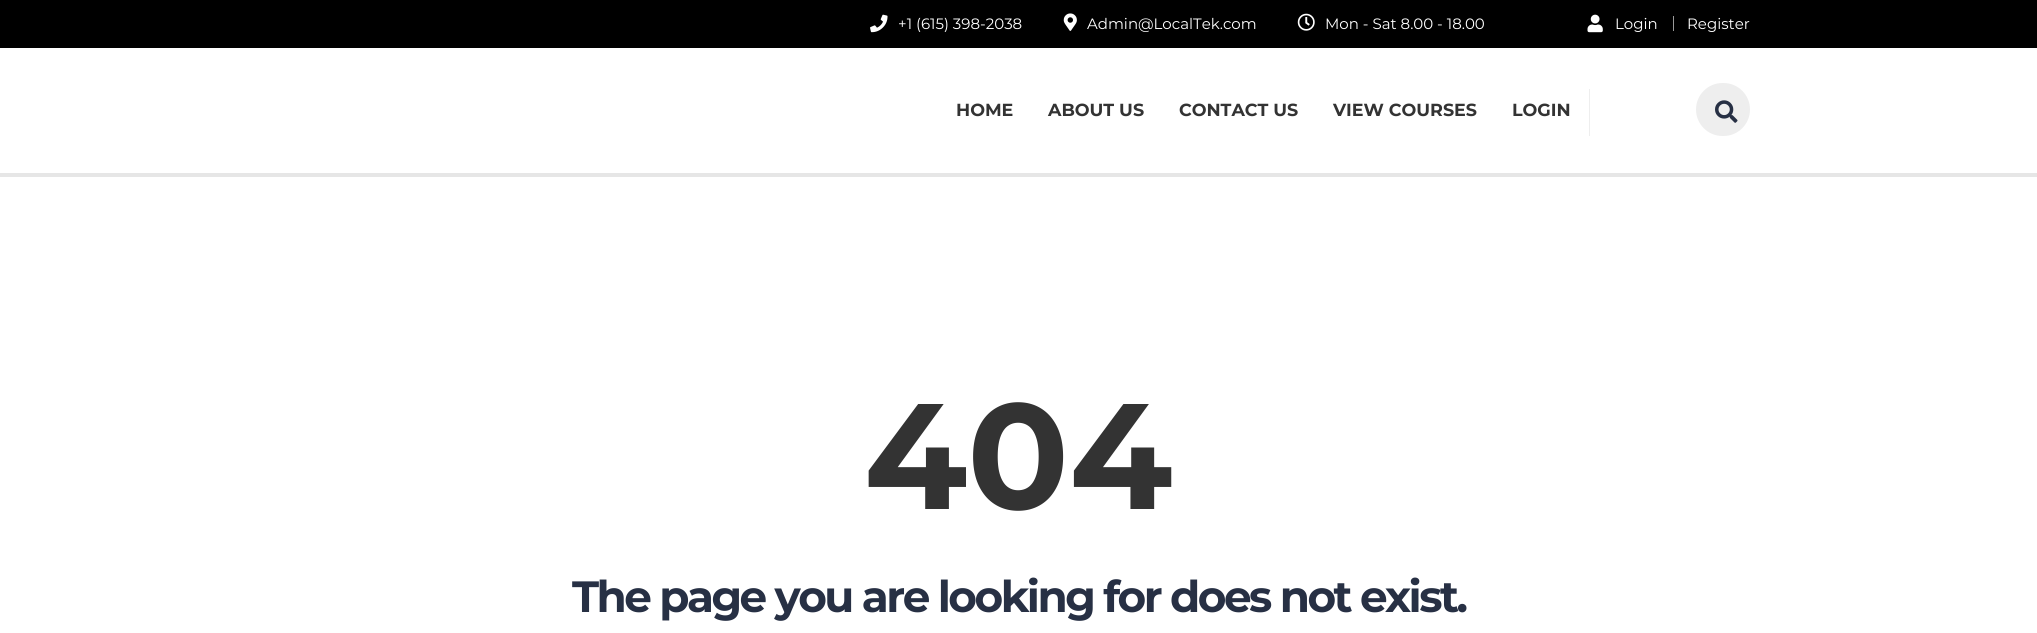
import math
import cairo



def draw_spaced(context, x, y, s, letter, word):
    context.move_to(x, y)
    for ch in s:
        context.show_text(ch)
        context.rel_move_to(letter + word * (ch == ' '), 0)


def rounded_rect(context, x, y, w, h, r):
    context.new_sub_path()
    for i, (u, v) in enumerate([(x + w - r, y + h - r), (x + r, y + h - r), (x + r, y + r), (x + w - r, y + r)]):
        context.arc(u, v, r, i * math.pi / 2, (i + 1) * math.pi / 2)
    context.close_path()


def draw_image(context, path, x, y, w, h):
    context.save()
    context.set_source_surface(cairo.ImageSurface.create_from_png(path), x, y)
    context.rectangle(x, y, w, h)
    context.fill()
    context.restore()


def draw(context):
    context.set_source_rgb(1, 1, 1)
    context.paint()
    context.set_source_rgb(0, 0, 0)
    context.rectangle(0, 0, 2037, 48)
    context.fill()
    draw_image(context, "images/1.png", 870, 14, 18, 19)
    draw_image(context, "images/2.png", 1063, 13, 14, 18)
    draw_image(context, "images/3.png", 1297, 13, 18, 18)
    draw_image(context, "images/4.png", 1587, 14, 16, 19)
    context.set_source_rgb(154 / 255, 154 / 255, 154 / 255)
    context.rectangle(1673, 16, 1, 15)
    context.fill()
    context.set_source_rgb(238 / 255, 238 / 255, 238 / 255)
    context.rectangle(1589, 89, 1, 47)
    context.fill()
    rounded_rect(context, 1696, 83, 54, 53, 26.5)
    context.fill()
    draw_image(context, "images/5.png", 1715, 100, 23, 23)
    context.set_source_rgb(230 / 255, 230 / 255, 230 / 255)
    context.rectangle(0, 173, 2037, 4)
    context.fill()
    context.select_font_face("Montserrat")
    context.set_font_size(15)
    context.set_source_rgb(1, 1, 1)
    context.move_to(898, 29)
    context.show_text("+1 (615) 398-2038")
    context.move_to(1087, 29)
    context.show_text("Admin@LocalTek.com")
    context.move_to(1325, 29)
    context.show_text("Mon - Sat 8.00 - 18.00")
    context.move_to(1615, 29)
    context.show_text("Login")
    context.move_to(1687, 29)
    context.show_text("Register")
    context.select_font_face("Montserrat", cairo.FontSlant.NORMAL, cairo.FontWeight.BOLD)
    context.set_font_size(17.5)
    context.set_source_rgb(51 / 255, 51 / 255, 51 / 255)
    context.move_to(956, 116)
    context.show_text("HOME")
    context.move_to(1048, 116)
    context.show_text("ABOUT US")
    context.move_to(1179, 116)
    context.show_text("CONTACT US")
    context.move_to(1333, 116)
    context.show_text("VIEW COURSES")
    context.move_to(1512, 116)
    context.show_text("LOGIN")
    context.set_font_size(150)
    context.move_to(864, 509)
    context.show_text("404")
    context.set_font_size(43.75)
    context.set_source_rgb(39 / 255, 48 / 255, 68 / 255)
    draw_spaced(context, 572, 612, "The page you are looking for does not exist.", -2.5, 0)


surface = cairo.ImageSurface(cairo.Format.RGB24, 2037, 633)
context = cairo.Context(surface)
options = cairo.FontOptions()
options.set_hint_metrics(cairo.HintMetrics.OFF)
options.set_hint_style(cairo.HintStyle.NONE)
context.set_font_options(options)
context.set_miter_limit(4)
draw(context)
surface.write_to_png("out.png")
